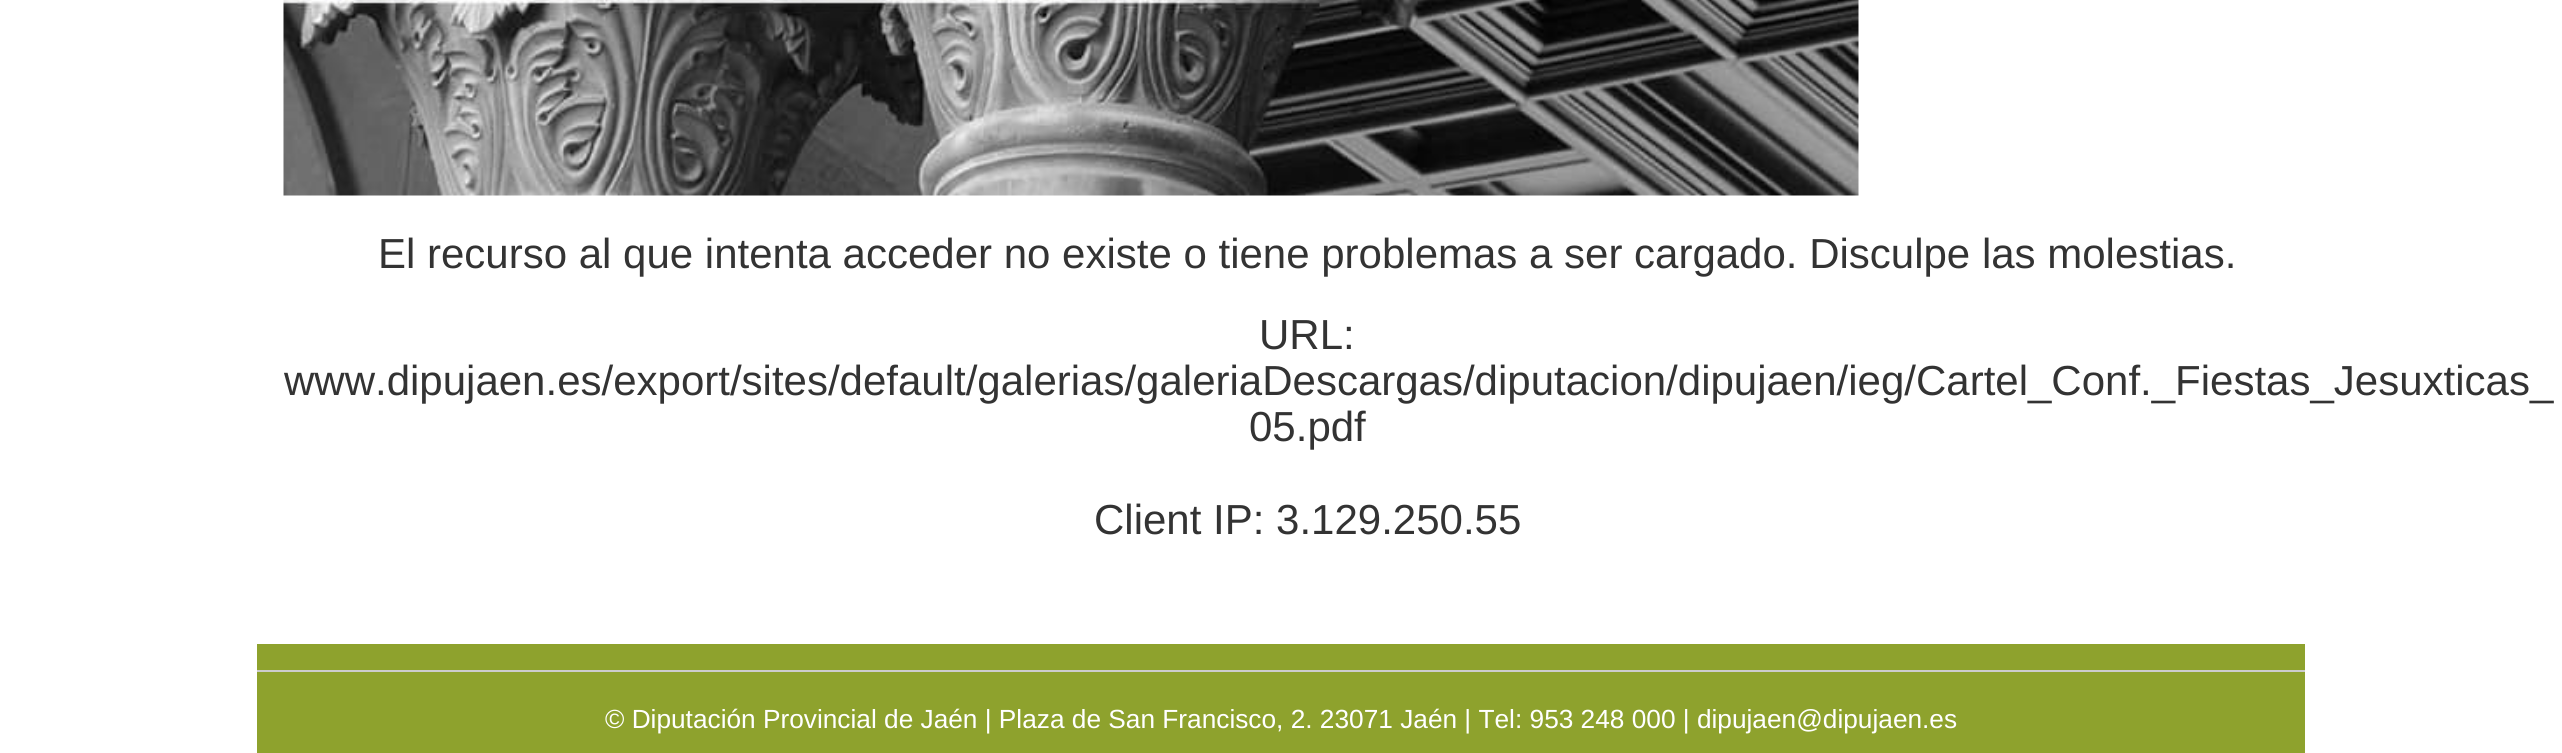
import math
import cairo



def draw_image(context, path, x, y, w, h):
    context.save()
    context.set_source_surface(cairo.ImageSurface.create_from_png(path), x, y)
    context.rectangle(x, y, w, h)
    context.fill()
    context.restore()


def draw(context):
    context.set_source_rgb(1, 1, 1)
    context.paint()
    draw_image(context, "images/1.png", 283, 0, 1576, 196)
    context.set_source_rgb(142 / 255, 162 / 255, 45 / 255)
    context.rectangle(257, 644, 2048, 109)
    context.fill()
    context.set_source_rgb(204 / 255, 204 / 255, 204 / 255)
    context.rectangle(257, 670, 2048, 2)
    context.fill()
    context.select_font_face("Liberation Sans")
    context.set_font_size(42)
    context.set_source_rgb(51 / 255, 51 / 255, 51 / 255)
    context.move_to(378, 268)
    context.show_text("El recurso al que intenta acceder no existe o tiene problemas a ser cargado. Disculpe las molestias.")
    context.move_to(1259, 349)
    context.show_text("URL:")
    context.move_to(284, 395)
    context.show_text("www.dipujaen.es/export/sites/default/galerias/galeriaDescargas/diputacion/dipujaen/ieg/Cartel_Conf._Fiestas_Jesuxticas_")
    context.move_to(1249, 441)
    context.show_text("05.pdf")
    context.move_to(1094, 534)
    context.show_text("Client IP: 3.129.250.55")
    context.set_font_size(26.25)
    context.set_source_rgb(1, 1, 1)
    context.move_to(605, 728)
    context.show_text("© Diputación Provincial de Jaén | Plaza de San Francisco, 2. 23071 Jaén | Tel: 953 248 000 | dipujaen@dipujaen.es")


surface = cairo.ImageSurface(cairo.Format.RGB24, 2562, 753)
context = cairo.Context(surface)
options = cairo.FontOptions()
options.set_hint_metrics(cairo.HintMetrics.OFF)
options.set_hint_style(cairo.HintStyle.NONE)
context.set_font_options(options)
context.set_miter_limit(4)
draw(context)
surface.write_to_png("out.png")
